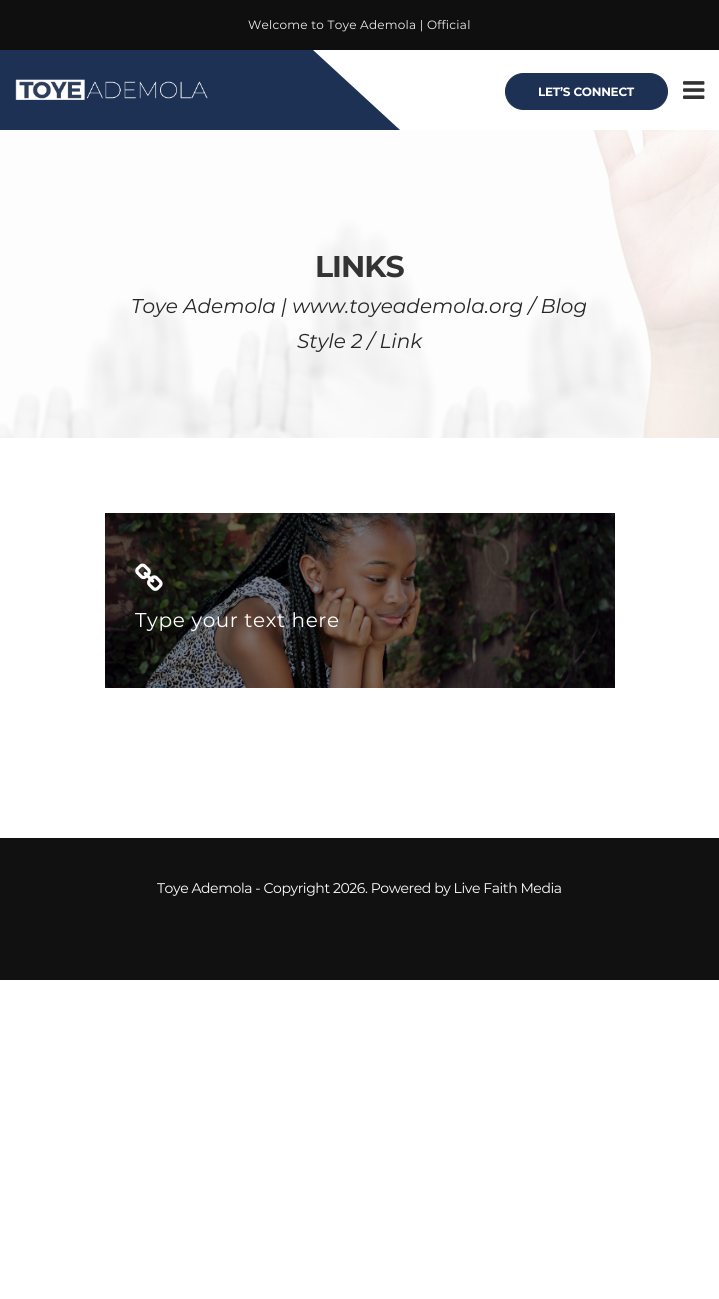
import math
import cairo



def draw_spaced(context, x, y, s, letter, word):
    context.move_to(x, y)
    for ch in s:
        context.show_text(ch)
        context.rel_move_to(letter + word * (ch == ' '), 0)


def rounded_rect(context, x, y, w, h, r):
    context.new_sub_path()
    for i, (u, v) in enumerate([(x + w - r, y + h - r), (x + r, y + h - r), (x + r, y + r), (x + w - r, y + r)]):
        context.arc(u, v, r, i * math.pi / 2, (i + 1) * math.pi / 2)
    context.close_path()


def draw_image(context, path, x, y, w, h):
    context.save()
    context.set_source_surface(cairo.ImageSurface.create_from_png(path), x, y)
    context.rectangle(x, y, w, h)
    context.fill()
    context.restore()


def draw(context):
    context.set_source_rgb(1, 1, 1)
    context.paint()
    context.set_source_rgb(15 / 255, 15 / 255, 15 / 255)
    context.rectangle(0, 0, 719, 50)
    context.fill()
    context.set_source_rgb(29 / 255, 49 / 255, 85 / 255)
    context.rectangle(0, 50, 313, 80)
    context.fill()
    draw_image(context, "images/1.png", 15, 79, 193, 21)
    context.new_path()
    context.move_to(400, 130)
    context.line_to(313, 130)
    context.line_to(313, 50)
    context.close_path()
    context.fill()
    rounded_rect(context, 505.5, 73.5, 162, 36, 18)
    context.fill_preserve()
    context.set_line_width(1)
    context.stroke()
    draw_image(context, "images/2.png", 683, 81, 22, 18)
    draw_image(context, "images/3.png", 0, 130, 719, 308)
    draw_image(context, "images/4.png", 105, 513, 510, 175)
    draw_image(context, "images/5.png", 135, 563, 28, 28)
    context.set_source_rgb(17 / 255, 17 / 255, 17 / 255)
    context.rectangle(0, 838, 719, 142)
    context.fill()
    context.select_font_face("Montserrat")
    context.set_font_size(12)
    context.set_source_rgb(238 / 255, 238 / 255, 238 / 255)
    draw_spaced(context, 248, 29, "Welcome to Toye Ademola | Official", 0.25, 0)
    context.select_font_face("Montserrat", cairo.FontSlant.NORMAL, cairo.FontWeight.BOLD)
    context.set_source_rgb(1, 1, 1)
    draw_spaced(context, 538, 96, "LET’S CONNECT", -0.25, 0)
    context.set_font_size(30)
    context.set_source_rgb(51 / 255, 51 / 255, 51 / 255)
    draw_spaced(context, 315, 277, "LINKS", -1, 0)
    context.select_font_face("Montserrat", cairo.FontSlant.ITALIC)
    context.set_font_size(20)
    context.set_source_rgb(38 / 255, 38 / 255, 38 / 255)
    context.move_to(131, 313)
    context.show_text("Toye Ademola | www.toyeademola.org / Blog")
    context.move_to(297, 348)
    context.show_text("Style 2 / Link")
    context.select_font_face("Montserrat")
    context.set_source_rgb(1, 1, 1)
    draw_spaced(context, 135, 627, "Type your text here", 0.6, 0)
    context.set_font_size(14)
    draw_spaced(context, 157, 893, "Toye Ademola - Copyright 2026. Powered by Live Faith Media", -0.42, 0)


surface = cairo.ImageSurface(cairo.Format.RGB24, 719, 1299)
context = cairo.Context(surface)
options = cairo.FontOptions()
options.set_hint_metrics(cairo.HintMetrics.OFF)
options.set_hint_style(cairo.HintStyle.NONE)
context.set_font_options(options)
context.set_miter_limit(4)
draw(context)
surface.write_to_png("out.png")
